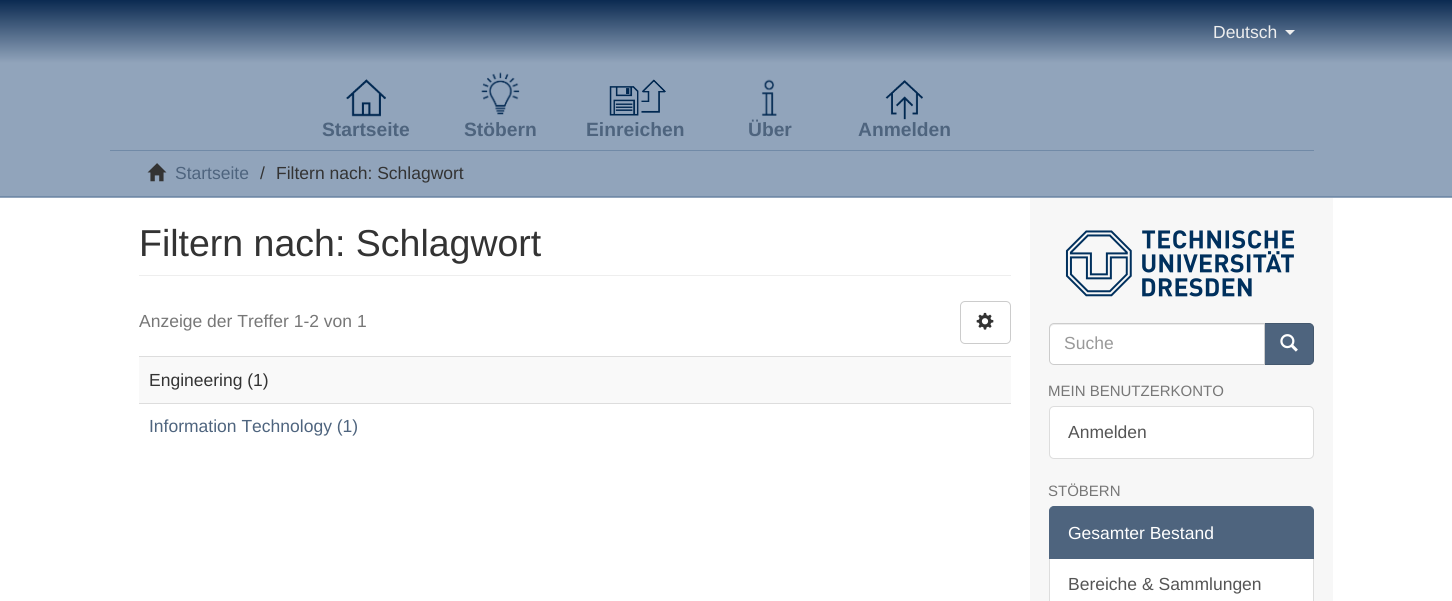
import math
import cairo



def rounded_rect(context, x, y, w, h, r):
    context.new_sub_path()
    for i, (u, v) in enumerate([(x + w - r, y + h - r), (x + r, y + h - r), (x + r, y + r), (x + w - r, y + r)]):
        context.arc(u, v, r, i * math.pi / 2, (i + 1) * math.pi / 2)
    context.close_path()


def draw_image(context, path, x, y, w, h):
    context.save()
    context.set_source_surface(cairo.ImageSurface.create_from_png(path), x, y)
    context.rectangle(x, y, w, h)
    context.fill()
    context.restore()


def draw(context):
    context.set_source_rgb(1, 1, 1)
    context.paint()
    gradient = cairo.LinearGradient(726, 0, 726, 63)
    gradient.add_color_stop_rgba(0, 11 / 255, 42 / 255, 81 / 255, 1)
    gradient.add_color_stop_rgba(1, 145 / 255, 164 / 255, 187 / 255, 1)
    context.set_source(gradient)
    context.rectangle(0, 0, 1452, 63)
    context.fill()
    context.set_source_rgb(238 / 255, 238 / 255, 238 / 255)
    context.new_path()
    context.move_to(1285, 30)
    context.line_to(1295, 30)
    context.line_to(1290, 35)
    context.close_path()
    context.fill()
    context.set_source_rgb(145 / 255, 164 / 255, 187 / 255)
    context.rectangle(0, 63, 1452, 135)
    context.fill()
    context.set_source_rgb(113 / 255, 138 / 255, 167 / 255)
    context.rectangle(0, 196, 1452, 1)
    context.fill()
    draw_image(context, "images/1.png", 346, 79, 40, 38)
    draw_image(context, "images/2.png", 481, 72, 39, 43)
    draw_image(context, "images/3.png", 609, 79, 57, 37)
    draw_image(context, "images/4.png", 761, 79, 16, 37)
    draw_image(context, "images/5.png", 885, 80, 38, 40)
    context.rectangle(110, 150, 1204, 1)
    context.fill()
    draw_image(context, "images/6.png", 147, 163, 20, 19)
    context.set_source_rgb(247 / 255, 247 / 255, 247 / 255)
    context.rectangle(1030, 198, 303, 403)
    context.fill()
    context.set_source_rgb(238 / 255, 238 / 255, 238 / 255)
    context.rectangle(139, 275, 872, 1)
    context.fill()
    rounded_rect(context, 960.5, 301.5, 50, 42, 4.5)
    context.set_source_rgb(204 / 255, 204 / 255, 204 / 255)
    context.set_line_width(1)
    context.stroke()
    draw_image(context, "images/7.png", 976, 312, 18, 18)
    context.set_source_rgb(249 / 255, 249 / 255, 249 / 255)
    context.rectangle(139, 357, 872, 46)
    context.fill()
    context.set_source_rgb(221 / 255, 221 / 255, 221 / 255)
    context.rectangle(139, 356, 872, 1)
    context.fill()
    context.rectangle(139, 403, 872, 1)
    context.fill()
    draw_image(context, "images/8.png", 1065, 230, 230, 67)
    context.set_source_rgb(78 / 255, 100 / 255, 126 / 255)
    context.new_path()
    context.move_to(1264.5, 323.5)
    context.line_to(1309, 323.5)
    context.curve_to(1311.5, 323.5, 1313.5, 325.5, 1313.5, 328)
    context.line_to(1313.5, 360)
    context.curve_to(1313.5, 362.5, 1311.5, 364.5, 1309, 364.5)
    context.line_to(1264.5, 364.5)
    context.close_path()
    context.fill_preserve()
    context.set_source_rgb(68 / 255, 88 / 255, 110 / 255)
    context.stroke()
    context.set_source_rgb(1, 1, 1)
    context.new_path()
    context.move_to(1054, 323)
    context.line_to(1265, 323)
    context.line_to(1265, 365)
    context.line_to(1054, 365)
    context.curve_to(1051, 365, 1049, 363, 1049, 360)
    context.line_to(1049, 328)
    context.curve_to(1049, 325, 1051, 323, 1054, 323)
    context.close_path()
    context.fill()
    context.set_source_rgb(236 / 255, 236 / 255, 236 / 255)
    context.new_path()
    context.move_to(1054, 325)
    context.line_to(1264, 325)
    context.line_to(1264, 324)
    context.line_to(1052, 324)
    context.curve_to(1050, 325, 1050, 327, 1050, 329)
    context.curve_to(1050, 327, 1052, 325, 1054, 325)
    context.close_path()
    context.fill()
    context.new_path()
    context.move_to(1054, 323.5)
    context.line_to(1264.5, 323.5)
    context.line_to(1264.5, 364.5)
    context.line_to(1054, 364.5)
    context.curve_to(1051.5, 364.5, 1049.5, 362.5, 1049.5, 360)
    context.line_to(1049.5, 328)
    context.curve_to(1049.5, 325.5, 1051.5, 323.5, 1054, 323.5)
    context.close_path()
    context.set_source_rgb(204 / 255, 204 / 255, 204 / 255)
    context.stroke()
    draw_image(context, "images/9.png", 1280, 334, 18, 18)
    context.set_source_rgb(1, 1, 1)
    rounded_rect(context, 1049.5, 406.5, 264, 52, 4.5)
    context.fill_preserve()
    context.set_source_rgb(221 / 255, 221 / 255, 221 / 255)
    context.stroke()
    context.set_source_rgb(1, 1, 1)
    context.rectangle(1049.5, 558.5, 264, 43)
    context.fill_preserve()
    context.set_source_rgb(221 / 255, 221 / 255, 221 / 255)
    context.stroke()
    context.set_source_rgb(78 / 255, 100 / 255, 126 / 255)
    context.new_path()
    context.move_to(1054, 506.5)
    context.line_to(1309, 506.5)
    context.curve_to(1311.5, 506.5, 1313.5, 508.5, 1313.5, 511)
    context.line_to(1313.5, 558.5)
    context.line_to(1049.5, 558.5)
    context.line_to(1049.5, 511)
    context.curve_to(1049.5, 508.5, 1051.5, 506.5, 1054, 506.5)
    context.close_path()
    context.fill_preserve()
    context.stroke()
    context.select_font_face("Liberation Sans")
    context.set_font_size(17.5)
    context.set_source_rgb(238 / 255, 238 / 255, 238 / 255)
    context.move_to(1213, 38)
    context.show_text("Deutsch")
    context.select_font_face("Liberation Sans", cairo.FontSlant.NORMAL, cairo.FontWeight.BOLD)
    context.set_font_size(19.25)
    context.set_source_rgb(78 / 255, 100 / 255, 126 / 255)
    context.move_to(322, 136)
    context.show_text("Startseite")
    context.move_to(464, 136)
    context.show_text("Stöbern")
    context.move_to(586, 136)
    context.show_text("Einreichen")
    context.move_to(748, 136)
    context.show_text("Über")
    context.move_to(858, 136)
    context.show_text("Anmelden")
    context.select_font_face("Liberation Sans")
    context.set_font_size(17.5)
    context.move_to(175, 179)
    context.show_text("Startseite")
    context.set_source_rgb(51 / 255, 51 / 255, 51 / 255)
    context.move_to(260, 179)
    context.show_text("/")
    context.move_to(276, 179)
    context.show_text("Filtern nach: Schlagwort")
    context.set_font_size(37.5)
    context.move_to(139, 256)
    context.show_text("Filtern nach: Schlagwort")
    context.set_font_size(17.5)
    context.set_source_rgb(119 / 255, 119 / 255, 119 / 255)
    context.move_to(139, 327)
    context.show_text("Anzeige der Treffer 1-2 von 1")
    context.set_source_rgb(51 / 255, 51 / 255, 51 / 255)
    context.move_to(149, 386)
    context.show_text("Engineering (1)")
    context.set_source_rgb(78 / 255, 100 / 255, 126 / 255)
    context.move_to(149, 432)
    context.show_text("Information Technology (1)")
    context.set_source_rgb(153 / 255, 153 / 255, 153 / 255)
    context.move_to(1064, 349)
    context.show_text("Suche")
    context.set_font_size(15)
    context.set_source_rgb(119 / 255, 119 / 255, 119 / 255)
    context.move_to(1048, 396)
    context.show_text("MEIN BENUTZERKONTO")
    context.set_font_size(17.5)
    context.set_source_rgb(85 / 255, 85 / 255, 85 / 255)
    context.move_to(1068, 438)
    context.show_text("Anmelden")
    context.set_font_size(15)
    context.set_source_rgb(119 / 255, 119 / 255, 119 / 255)
    context.move_to(1048, 496)
    context.show_text("STÖBERN")
    context.set_font_size(17.5)
    context.set_source_rgb(1, 1, 1)
    context.move_to(1068, 539)
    context.show_text("Gesamter Bestand")
    context.set_source_rgb(85 / 255, 85 / 255, 85 / 255)
    context.move_to(1068, 590)
    context.show_text("Bereiche & Sammlungen")


surface = cairo.ImageSurface(cairo.Format.RGB24, 1452, 601)
context = cairo.Context(surface)
options = cairo.FontOptions()
options.set_hint_metrics(cairo.HintMetrics.OFF)
options.set_hint_style(cairo.HintStyle.NONE)
context.set_font_options(options)
context.set_miter_limit(4)
draw(context)
surface.write_to_png("out.png")
